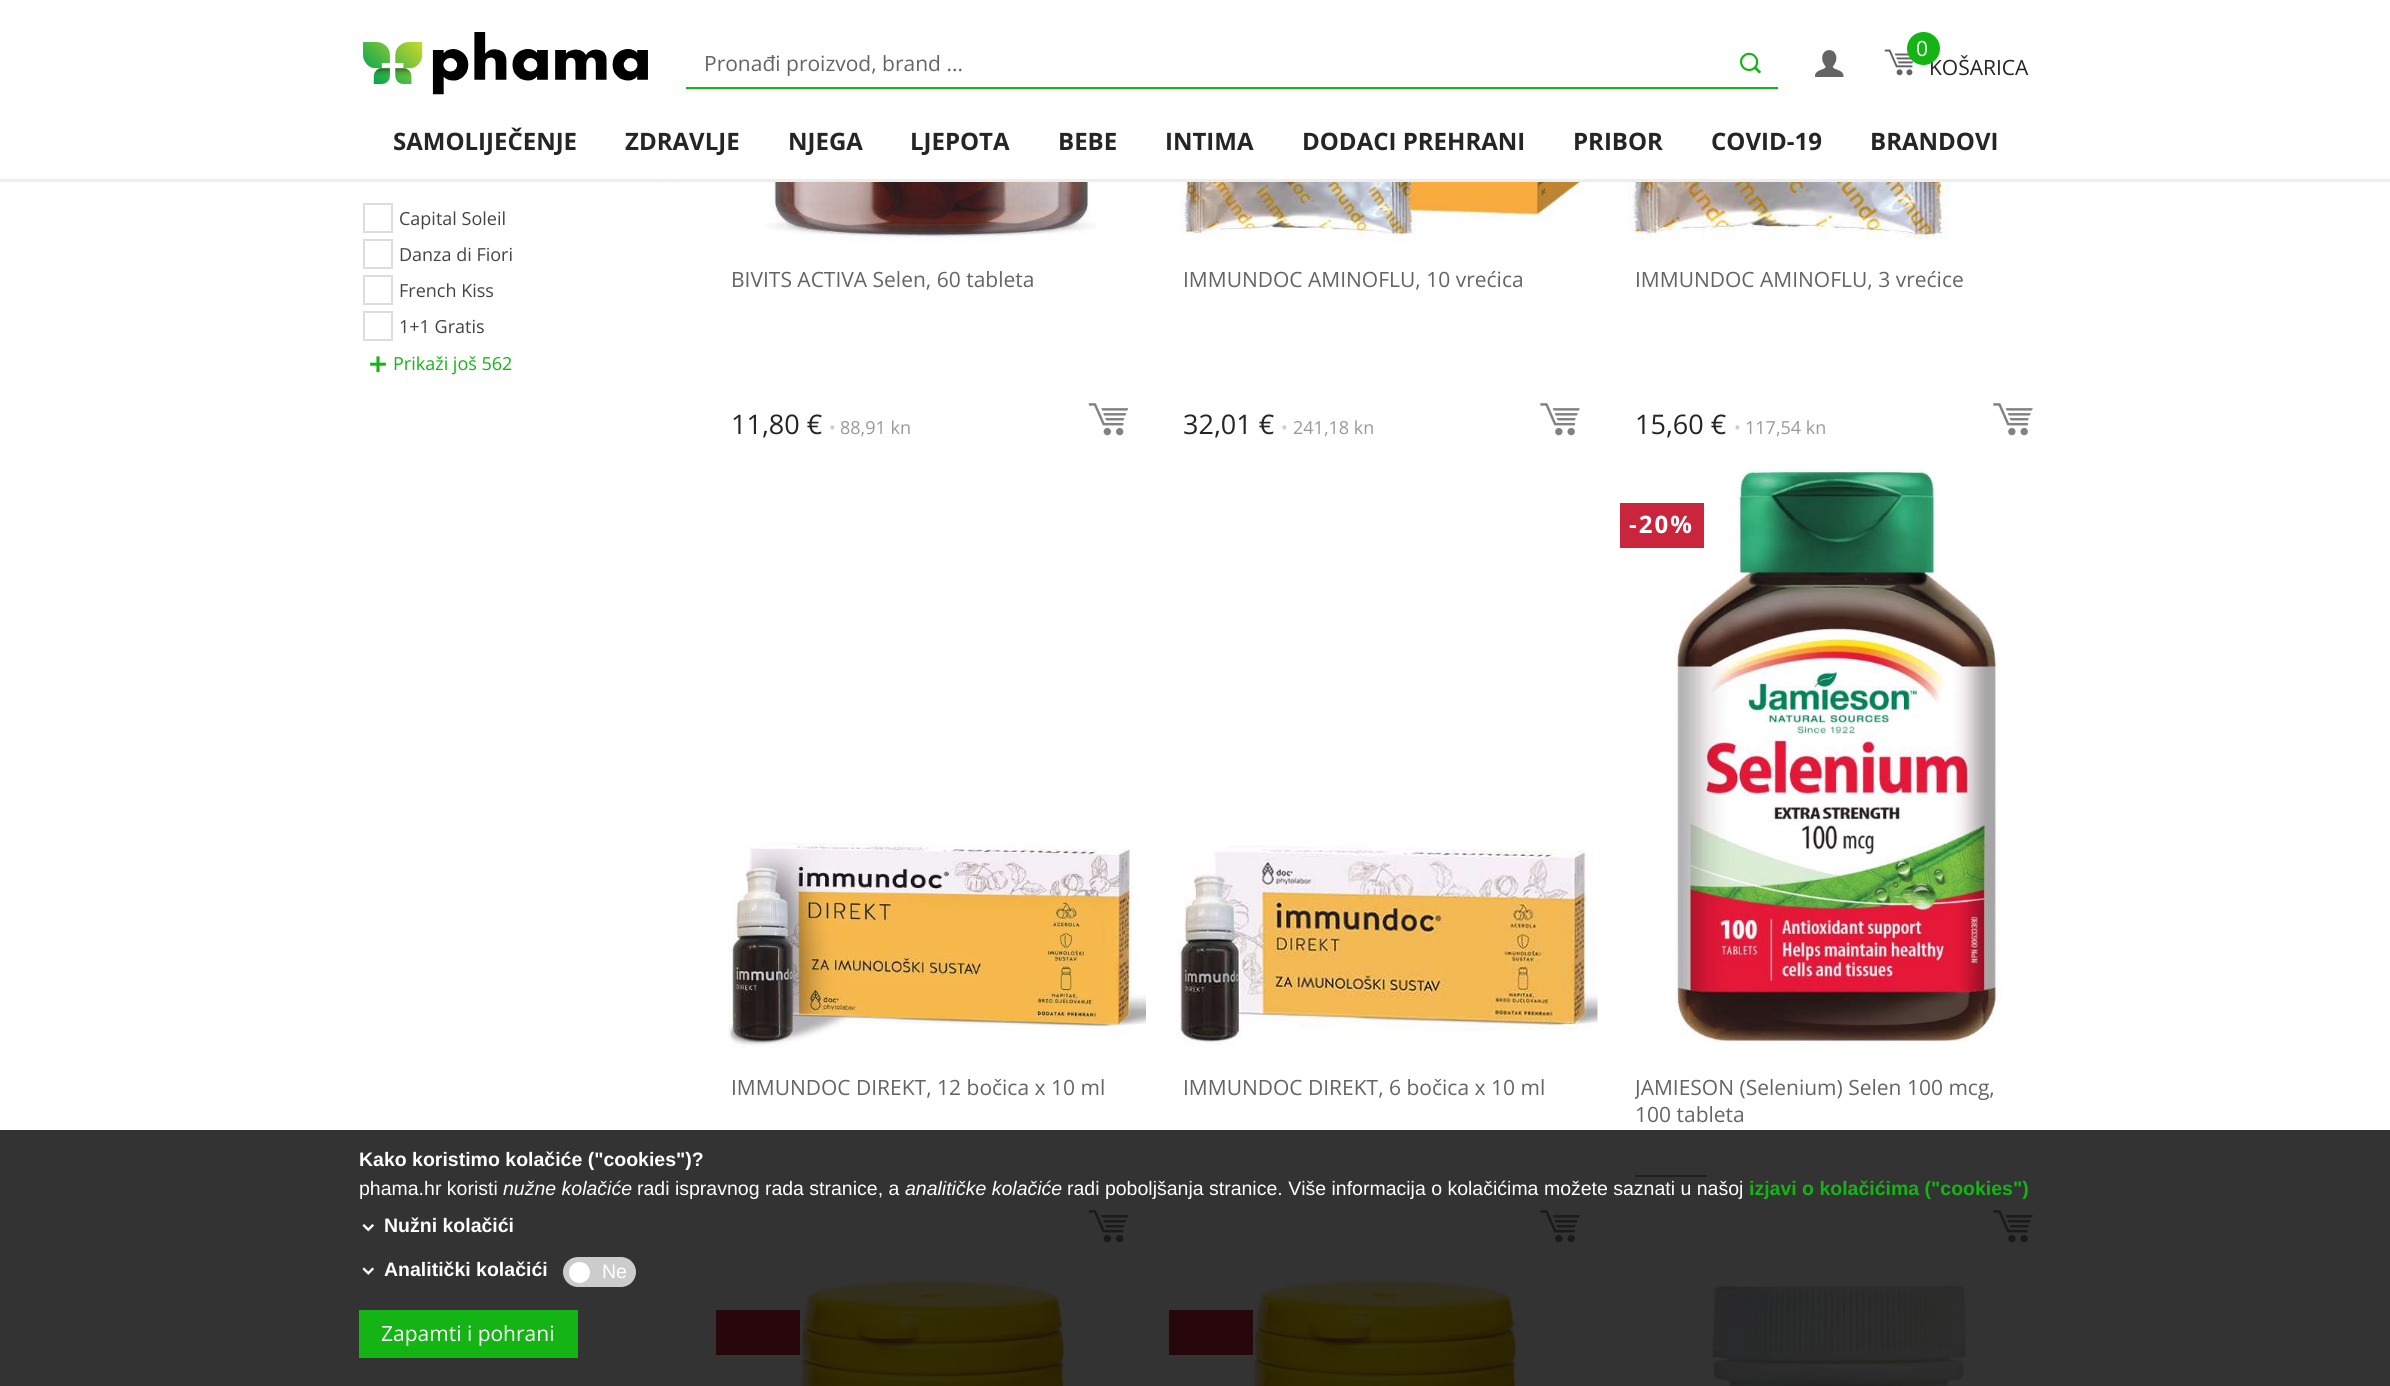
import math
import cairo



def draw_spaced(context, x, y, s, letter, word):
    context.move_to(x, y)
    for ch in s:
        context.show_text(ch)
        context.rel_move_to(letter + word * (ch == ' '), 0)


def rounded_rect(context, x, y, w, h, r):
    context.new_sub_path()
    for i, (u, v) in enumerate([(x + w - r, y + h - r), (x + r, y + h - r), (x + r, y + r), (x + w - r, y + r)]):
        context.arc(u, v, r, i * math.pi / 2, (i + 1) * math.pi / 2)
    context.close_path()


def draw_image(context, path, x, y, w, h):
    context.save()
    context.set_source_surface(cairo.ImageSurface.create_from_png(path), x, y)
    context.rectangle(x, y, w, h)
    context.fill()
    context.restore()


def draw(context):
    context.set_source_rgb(1, 1, 1)
    context.paint()
    context.set_source_rgb(238 / 255, 238 / 255, 238 / 255)
    context.rectangle(0, 179, 2390, 3)
    context.fill()
    draw_image(context, "images/1.png", 363, 32, 285, 63)
    context.set_source_rgb(20 / 255, 180 / 255, 20 / 255)
    context.rectangle(686, 87, 1092, 2)
    context.fill()
    draw_image(context, "images/2.png", 1740, 52, 21, 22)
    draw_image(context, "images/3.png", 1815, 50, 29, 27)
    draw_image(context, "images/4.png", 1884, 49, 29, 27)
    draw_image(context, "images/5.png", 662, 182, 11, 1)
    context.rectangle(364, 204, 28, 28)
    context.set_source_rgb(221 / 255, 221 / 255, 221 / 255)
    context.stroke()
    context.rectangle(364, 240, 28, 28)
    context.stroke()
    context.rectangle(364, 276, 28, 28)
    context.stroke()
    context.rectangle(364, 312, 28, 28)
    context.stroke()
    draw_image(context, "images/6.png", 370, 356, 16, 17)
    draw_image(context, "images/7.png", 764, 182, 332, 59)
    draw_image(context, "images/8.png", 1088, 403, 41, 33)
    draw_image(context, "images/9.png", 1180, 182, 410, 59)
    draw_image(context, "images/10.png", 1540, 403, 40, 33)
    draw_image(context, "images/11.png", 1620, 182, 431, 58)
    draw_image(context, "images/10.png", 1993, 403, 40, 33)
    draw_image(context, "images/12.png", 728, 843, 418, 205)
    draw_image(context, "images/8.png", 1088, 1210, 41, 33)
    draw_image(context, "images/13.png", 1176, 845, 422, 201)
    draw_image(context, "images/10.png", 1540, 1210, 40, 33)
    draw_image(context, "images/14.png", 1669, 469, 332, 574)
    context.set_source_rgb(201 / 255, 37 / 255, 60 / 255)
    context.rectangle(1620, 503, 84, 45)
    context.fill()
    context.set_source_rgb(155 / 255, 155 / 255, 155 / 255)
    context.rectangle(1635, 1175, 72, 2)
    context.fill()
    draw_image(context, "images/10.png", 1993, 1210, 40, 33)
    context.set_source_rgb(201 / 255, 37 / 255, 60 / 255)
    context.rectangle(716, 1310, 84, 45)
    context.fill()
    draw_image(context, "images/15.png", 800, 1276, 267, 110)
    draw_image(context, "images/16.png", 1252, 1276, 266, 110)
    context.rectangle(1169, 1310, 84, 45)
    context.fill()
    draw_image(context, "images/17.png", 1712, 1282, 255, 104)
    context.set_source_rgba(0, 0, 0, 0.8)
    context.rectangle(0, 1130, 2390, 256)
    context.fill()
    draw_image(context, "images/18.png", 362, 1224, 12, 8)
    draw_image(context, "images/19.png", 362, 1267, 12, 8)
    context.set_source_rgb(204 / 255, 204 / 255, 204 / 255)
    rounded_rect(context, 563, 1257, 73, 30, 15)
    context.fill()
    context.set_source_rgb(1, 1, 1)
    context.arc(579.5, 1272.5, 10.5, 0, 2 * math.pi)
    context.fill()
    context.set_source_rgb(20 / 255, 180 / 255, 20 / 255)
    context.rectangle(359, 1310, 219, 48)
    context.fill()
    context.select_font_face("Open Sans")
    context.set_font_size(21)
    context.set_source_rgb(100 / 255, 100 / 255, 100 / 255)
    context.move_to(704, 71)
    context.show_text("Pronađi proizvod, brand ...")
    context.set_source_rgb(37 / 255, 37 / 255, 37 / 255)
    context.move_to(1929, 75)
    context.show_text("KOŠARICA")
    context.set_source_rgb(20 / 255, 180 / 255, 20 / 255)
    context.new_path()
    context.arc(1923.5, 48.5, 16.5, 0, 2 * math.pi)
    context.fill()
    context.set_source_rgb(1, 1, 1)
    context.move_to(1916, 56)
    context.show_text("0")
    context.select_font_face("Open Sans", cairo.FontSlant.NORMAL, cairo.FontWeight.BOLD)
    context.set_font_size(24)
    context.set_source_rgb(37 / 255, 37 / 255, 37 / 255)
    context.move_to(393, 150)
    context.show_text("SAMOLIJEČENJE")
    context.move_to(625, 150)
    context.show_text("ZDRAVLJE")
    context.move_to(788, 150)
    context.show_text("NJEGA")
    context.move_to(910, 150)
    context.show_text("LJEPOTA")
    context.move_to(1058, 150)
    context.show_text("BEBE")
    context.move_to(1165, 150)
    context.show_text("INTIMA")
    context.move_to(1302, 150)
    context.show_text("DODACI PREHRANI")
    context.move_to(1573, 150)
    context.show_text("PRIBOR")
    context.move_to(1711, 150)
    context.show_text("COVID-19")
    context.move_to(1870, 150)
    context.show_text("BRANDOVI")
    context.select_font_face("Open Sans")
    context.set_font_size(18)
    context.set_source_rgb(68 / 255, 68 / 255, 68 / 255)
    context.move_to(399, 225)
    context.show_text("Capital Soleil")
    context.move_to(399, 261)
    context.show_text("Danza di Fiori")
    context.move_to(399, 297)
    context.show_text("French Kiss")
    context.move_to(399, 333)
    context.show_text("1+1 Gratis")
    context.set_source_rgb(20 / 255, 180 / 255, 20 / 255)
    context.move_to(393, 370)
    context.show_text("Prikaži još 562")
    context.set_font_size(21)
    context.set_source_rgb(100 / 255, 100 / 255, 100 / 255)
    context.move_to(731, 287)
    context.show_text("BIVITS ACTIVA Selen, 60 tableta")
    context.set_font_size(27)
    context.set_source_rgb(37 / 255, 37 / 255, 37 / 255)
    context.move_to(731, 434)
    context.show_text("11,80 €")
    context.set_font_size(18)
    context.set_source_rgb(204 / 255, 204 / 255, 204 / 255)
    context.move_to(829, 434)
    context.show_text("•")
    context.set_source_rgb(153 / 255, 153 / 255, 153 / 255)
    context.move_to(840, 434)
    context.show_text("88,91 kn")
    context.set_font_size(21)
    context.set_source_rgb(100 / 255, 100 / 255, 100 / 255)
    context.move_to(1183, 287)
    context.show_text("IMMUNDOC AMINOFLU, 10 vrećica")
    context.set_font_size(27)
    context.set_source_rgb(37 / 255, 37 / 255, 37 / 255)
    context.move_to(1183, 434)
    context.show_text("32,01 €")
    context.set_font_size(18)
    context.set_source_rgb(204 / 255, 204 / 255, 204 / 255)
    context.move_to(1281, 434)
    context.show_text("•")
    context.set_source_rgb(153 / 255, 153 / 255, 153 / 255)
    context.move_to(1293, 434)
    context.show_text("241,18 kn")
    context.set_font_size(21)
    context.set_source_rgb(100 / 255, 100 / 255, 100 / 255)
    context.move_to(1635, 287)
    context.show_text("IMMUNDOC AMINOFLU, 3 vrećice")
    context.set_font_size(27)
    context.set_source_rgb(37 / 255, 37 / 255, 37 / 255)
    context.move_to(1635, 434)
    context.show_text("15,60 €")
    context.set_font_size(18)
    context.set_source_rgb(204 / 255, 204 / 255, 204 / 255)
    context.move_to(1734, 434)
    context.show_text("•")
    context.set_source_rgb(153 / 255, 153 / 255, 153 / 255)
    context.move_to(1745, 434)
    context.show_text("117,54 kn")
    context.set_font_size(21)
    context.set_source_rgb(100 / 255, 100 / 255, 100 / 255)
    context.move_to(731, 1095)
    context.show_text("IMMUNDOC DIREKT, 12 bočica x 10 ml")
    context.move_to(1183, 1095)
    context.show_text("IMMUNDOC DIREKT, 6 bočica x 10 ml")
    context.select_font_face("Open Sans", cairo.FontSlant.NORMAL, cairo.FontWeight.BOLD)
    context.set_font_size(24)
    context.set_source_rgb(1, 1, 1)
    draw_spaced(context, 1629, 533, "-20%", 2, 0)
    context.save()
    context.rectangle(1635, 1074, 401, 84)
    context.clip()
    context.select_font_face("Open Sans")
    context.set_font_size(21)
    context.set_source_rgb(100 / 255, 100 / 255, 100 / 255)
    context.move_to(1635, 1095)
    context.show_text("JAMIESON (Selenium) Selen 100 mcg,")
    context.restore()
    context.select_font_face("Open Sans")
    context.set_font_size(21)
    context.set_source_rgb(100 / 255, 100 / 255, 100 / 255)
    context.move_to(1635, 1122)
    context.show_text("100 tableta")
    context.select_font_face("Liberation Sans", cairo.FontSlant.NORMAL, cairo.FontWeight.BOLD)
    context.set_font_size(19.5)
    context.set_source_rgb(1, 1, 1)
    context.move_to(359, 1166)
    context.show_text("Kako koristimo kolačiće (\"cookies\")?")
    context.select_font_face("Liberation Sans")
    context.move_to(359, 1195)
    context.show_text("phama.hr koristi")
    context.select_font_face("Liberation Sans", cairo.FontSlant.ITALIC)
    context.move_to(503, 1195)
    context.show_text("nužne kolačiće")
    context.select_font_face("Liberation Sans")
    context.move_to(637, 1195)
    context.show_text("radi ispravnog rada stranice, a")
    context.select_font_face("Liberation Sans", cairo.FontSlant.ITALIC)
    context.move_to(905, 1195)
    context.show_text("analitičke kolačiće")
    context.select_font_face("Liberation Sans")
    context.move_to(1067, 1195)
    context.show_text("radi poboljšanja stranice. Više informacija o kolačićima možete saznati u našoj")
    context.select_font_face("Liberation Sans", cairo.FontSlant.NORMAL, cairo.FontWeight.BOLD)
    context.set_source_rgb(20 / 255, 180 / 255, 20 / 255)
    context.move_to(1749, 1195)
    context.show_text("izjavi o kolačićima (\"cookies\")")
    context.set_source_rgb(1, 1, 1)
    context.move_to(384, 1232)
    context.show_text("Nužni kolačići")
    context.move_to(384, 1276)
    context.show_text("Analitički kolačići")
    context.select_font_face("Liberation Sans")
    context.move_to(602, 1278)
    context.show_text("Ne")
    context.select_font_face("Open Sans")
    context.set_font_size(21)
    context.move_to(381, 1341)
    context.show_text("Zapamti i pohrani")


surface = cairo.ImageSurface(cairo.Format.RGB24, 2390, 1386)
context = cairo.Context(surface)
options = cairo.FontOptions()
options.set_hint_metrics(cairo.HintMetrics.OFF)
options.set_hint_style(cairo.HintStyle.NONE)
context.set_font_options(options)
context.set_miter_limit(4)
draw(context)
surface.write_to_png("out.png")
